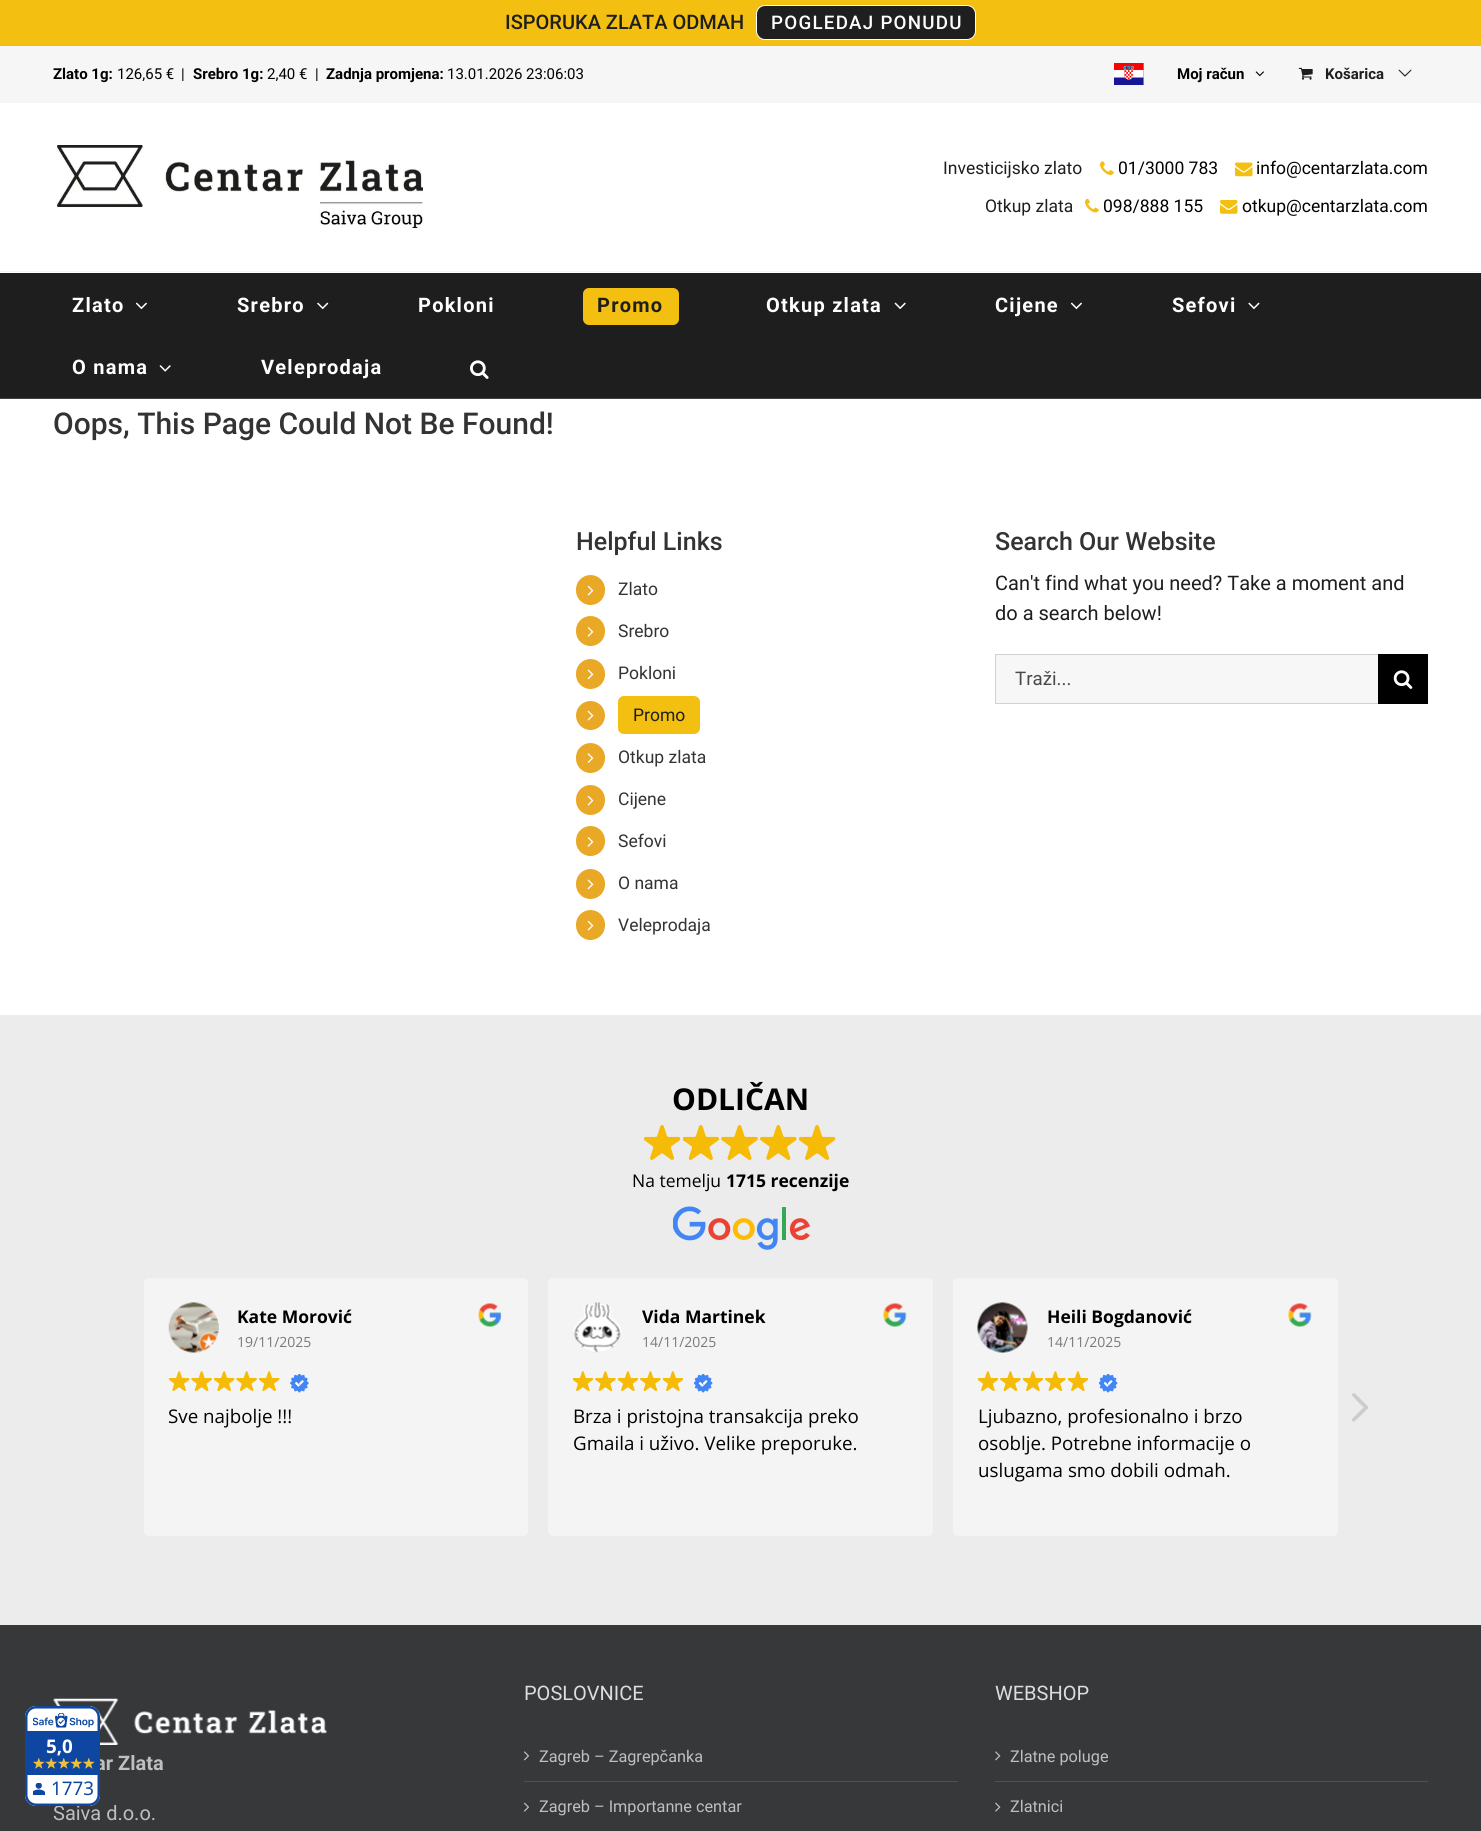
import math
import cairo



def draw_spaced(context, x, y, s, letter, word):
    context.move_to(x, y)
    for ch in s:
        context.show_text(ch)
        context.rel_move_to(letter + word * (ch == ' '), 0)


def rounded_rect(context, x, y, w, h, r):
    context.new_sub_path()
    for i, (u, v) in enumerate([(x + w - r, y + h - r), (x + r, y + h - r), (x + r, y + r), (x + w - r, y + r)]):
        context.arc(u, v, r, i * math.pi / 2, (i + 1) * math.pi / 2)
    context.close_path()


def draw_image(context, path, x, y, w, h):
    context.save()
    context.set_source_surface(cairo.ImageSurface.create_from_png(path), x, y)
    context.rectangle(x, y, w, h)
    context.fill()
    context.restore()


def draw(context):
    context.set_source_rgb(243 / 255, 191 / 255, 17 / 255)
    context.paint()
    context.set_source_rgb(31 / 255, 31 / 255, 31 / 255)
    rounded_rect(context, 756.5, 5.5, 219, 34, 8.5)
    context.fill_preserve()
    context.set_source_rgb(1, 1, 1)
    context.set_line_width(1)
    context.stroke()
    context.rectangle(0, 103, 1481, 912)
    context.fill()
    context.set_source_rgb(246 / 255, 246 / 255, 246 / 255)
    context.rectangle(0, 46, 1481, 57)
    context.fill()
    draw_image(context, "images/1.png", 1114, 63, 30, 22)
    draw_image(context, "images/2.png", 1255, 71, 9, 6)
    draw_image(context, "images/3.png", 1298, 67, 15, 13)
    draw_image(context, "images/4.png", 1398, 69, 14, 8)
    context.rectangle(0, 271, 1481, 1)
    context.fill()
    draw_image(context, "images/5.png", 56, 145, 368, 85)
    draw_image(context, "images/6.png", 1100, 161, 14, 14)
    draw_image(context, "images/7.png", 1235, 162, 18, 15)
    draw_image(context, "images/8.png", 1085, 198, 14, 15)
    draw_image(context, "images/9.png", 1220, 200, 18, 14)
    context.set_source_rgb(30 / 255, 30 / 255, 30 / 255)
    context.rectangle(0, 273, 1481, 125)
    context.fill()
    context.set_source_rgb(66 / 255, 66 / 255, 66 / 255)
    context.rectangle(0, 398, 1481, 1)
    context.fill()
    draw_image(context, "images/10.png", 135, 302, 12, 8)
    draw_image(context, "images/11.png", 317, 302, 12, 8)
    context.set_source_rgb(243 / 255, 191 / 255, 17 / 255)
    rounded_rect(context, 583, 288, 96, 37, 6)
    context.fill()
    draw_image(context, "images/12.png", 894, 302, 12, 8)
    draw_image(context, "images/10.png", 1070, 302, 12, 8)
    draw_image(context, "images/13.png", 1248, 302, 12, 8)
    draw_image(context, "images/14.png", 159, 365, 12, 7)
    draw_image(context, "images/15.png", 470, 360, 19, 19)
    context.set_source_rgb(233 / 255, 168 / 255, 37 / 255)
    rounded_rect(context, 576, 575, 29, 30, 14.5)
    context.fill()
    draw_image(context, "images/16.png", 587, 585, 7, 11)
    rounded_rect(context, 576, 616, 29, 30, 14.5)
    context.fill()
    draw_image(context, "images/17.png", 587, 627, 7, 10)
    rounded_rect(context, 576, 659, 29, 30, 14.5)
    context.fill()
    draw_image(context, "images/18.png", 587, 669, 7, 11)
    context.arc(590.5, 715.5, 14.5, 0, 2 * math.pi)
    context.fill()
    draw_image(context, "images/16.png", 587, 710, 7, 11)
    context.set_source_rgb(243 / 255, 191 / 255, 17 / 255)
    rounded_rect(context, 618, 696, 82, 38, 6)
    context.fill()
    context.set_source_rgb(233 / 255, 168 / 255, 37 / 255)
    rounded_rect(context, 576, 743, 29, 30, 14.5)
    context.fill()
    draw_image(context, "images/19.png", 587, 753, 7, 10)
    rounded_rect(context, 576, 785, 29, 30, 14.5)
    context.fill()
    draw_image(context, "images/16.png", 587, 795, 7, 11)
    rounded_rect(context, 576, 826, 29, 30, 14.5)
    context.fill()
    draw_image(context, "images/17.png", 587, 837, 7, 10)
    rounded_rect(context, 576, 869, 29, 30, 14.5)
    context.fill()
    draw_image(context, "images/18.png", 587, 879, 7, 11)
    rounded_rect(context, 576, 910, 29, 30, 14.5)
    context.fill()
    draw_image(context, "images/16.png", 587, 920, 7, 11)
    context.set_source_rgb(247 / 255, 247 / 255, 247 / 255)
    context.rectangle(996, 655, 382, 48)
    context.fill()
    context.set_source_rgb(210 / 255, 210 / 255, 210 / 255)
    context.rectangle(995, 654, 383, 1)
    context.fill()
    context.rectangle(995, 703, 383, 1)
    context.fill()
    context.rectangle(995, 654, 1, 50)
    context.fill()
    context.set_source_rgb(0, 0, 0)
    context.rectangle(1378, 654, 50, 50)
    context.fill()
    draw_image(context, "images/20.png", 1393, 670, 20, 19)
    context.set_source_rgb(236 / 255, 236 / 255, 236 / 255)
    context.rectangle(0, 1015, 1481, 610)
    context.fill()
    draw_image(context, "images/21.png", 644, 1125, 37, 35)
    draw_image(context, "images/22.png", 683, 1125, 37, 35)
    draw_image(context, "images/23.png", 721, 1125, 37, 35)
    draw_image(context, "images/24.png", 760, 1125, 37, 35)
    draw_image(context, "images/21.png", 799, 1125, 37, 35)
    draw_image(context, "images/25.png", 673, 1206, 137, 44)
    context.set_source_rgb(244 / 255, 244 / 255, 244 / 255)
    rounded_rect(context, 144, 1278, 384, 258, 5)
    context.fill()
    draw_image(context, "images/26.png", 168, 1302, 51, 51)
    draw_image(context, "images/27.png", 478, 1303, 24, 24)
    draw_image(context, "images/28.png", 169, 1371, 21, 20)
    draw_image(context, "images/29.png", 191, 1371, 21, 20)
    draw_image(context, "images/28.png", 214, 1371, 21, 20)
    draw_image(context, "images/29.png", 236, 1371, 21, 20)
    draw_image(context, "images/28.png", 259, 1371, 21, 20)
    draw_image(context, "images/30.png", 290, 1374, 19, 19)
    rounded_rect(context, 548, 1278, 385, 258, 5)
    context.fill()
    draw_image(context, "images/31.png", 573, 1302, 49, 51)
    draw_image(context, "images/32.png", 883, 1303, 24, 24)
    draw_image(context, "images/33.png", 573, 1371, 21, 20)
    draw_image(context, "images/34.png", 595, 1371, 21, 20)
    draw_image(context, "images/33.png", 618, 1371, 21, 20)
    draw_image(context, "images/34.png", 640, 1371, 21, 20)
    draw_image(context, "images/33.png", 663, 1371, 21, 20)
    draw_image(context, "images/35.png", 694, 1374, 19, 19)
    rounded_rect(context, 953, 1278, 385, 258, 5)
    context.fill()
    draw_image(context, "images/36.png", 977, 1302, 51, 51)
    draw_image(context, "images/32.png", 1288, 1303, 24, 24)
    draw_image(context, "images/33.png", 978, 1371, 21, 20)
    draw_image(context, "images/34.png", 1000, 1371, 21, 20)
    draw_image(context, "images/33.png", 1023, 1371, 21, 20)
    draw_image(context, "images/34.png", 1045, 1371, 21, 20)
    draw_image(context, "images/33.png", 1068, 1371, 21, 20)
    draw_image(context, "images/35.png", 1099, 1374, 19, 19)
    context.set_source_rgb(204 / 255, 204 / 255, 204 / 255)
    context.new_path()
    context.move_to(1355, 1393.5)
    context.line_to(1368, 1406.5)
    context.curve_to(1368.5, 1407.5, 1368, 1408.5, 1367, 1409)
    context.curve_to(1366.5, 1409, 1366, 1409, 1365.5, 1409)
    context.curve_to(1364.5, 1408.5, 1352, 1396, 1352, 1395)
    context.curve_to(1351.5, 1393.5, 1354, 1392.5, 1355, 1393.5)
    context.close_path()
    context.fill()
    context.new_path()
    context.move_to(1352.5, 1418.5)
    context.line_to(1365.5, 1405.5)
    context.curve_to(1366.5, 1405.5, 1367.5, 1405.5, 1368, 1406.5)
    context.curve_to(1368, 1407, 1368, 1407.5, 1368, 1408)
    context.curve_to(1367.5, 1409, 1355, 1421.5, 1354, 1421.5)
    context.curve_to(1352.5, 1422, 1351, 1419.5, 1352.5, 1418.5)
    context.close_path()
    context.fill()
    context.set_source_rgb(54 / 255, 56 / 255, 57 / 255)
    context.rectangle(0, 1625, 1481, 206)
    context.fill()
    draw_image(context, "images/37.png", 53, 1698, 274, 47)
    context.set_source_rgb(80 / 255, 81 / 255, 82 / 255)
    context.rectangle(524, 1781, 434, 1)
    context.fill()
    draw_image(context, "images/38.png", 523, 1751, 7, 10)
    draw_image(context, "images/39.png", 523, 1802, 7, 10)
    context.rectangle(995, 1781, 433, 1)
    context.fill()
    draw_image(context, "images/40.png", 995, 1751, 6, 10)
    draw_image(context, "images/41.png", 995, 1802, 6, 10)
    context.select_font_face("Roboto Medium")
    context.set_font_size(20)
    context.set_source_rgb(30 / 255, 30 / 255, 30 / 255)
    context.move_to(505, 29)
    context.show_text("ISPORUKA ZLATA ODMAH")
    context.set_font_size(18.75)
    context.set_source_rgb(1, 1, 1)
    draw_spaced(context, 771, 29, "POGLEDAJ PONUDU", 1.25, 0)
    context.select_font_face("Roboto", cairo.FontSlant.NORMAL, cairo.FontWeight.BOLD)
    context.set_font_size(15)
    context.set_source_rgb(0, 0, 0)
    context.move_to(53, 79)
    context.show_text("Zlato 1g:")
    context.select_font_face("Roboto")
    context.move_to(117, 79)
    context.show_text("126,65 €")
    context.move_to(181, 79)
    context.show_text("|")
    context.select_font_face("Roboto", cairo.FontSlant.NORMAL, cairo.FontWeight.BOLD)
    context.move_to(193, 79)
    context.show_text("Srebro 1g:")
    context.select_font_face("Roboto")
    context.move_to(267, 79)
    context.show_text("2,40 €")
    context.move_to(315, 79)
    context.show_text("|")
    context.select_font_face("Roboto", cairo.FontSlant.NORMAL, cairo.FontWeight.BOLD)
    context.move_to(326, 79)
    context.show_text("Zadnja promjena:")
    context.select_font_face("Roboto")
    context.move_to(447, 79)
    context.show_text("13.01.2026 23:06:03")
    context.select_font_face("Roboto", cairo.FontSlant.NORMAL, cairo.FontWeight.BOLD)
    context.move_to(1177, 79)
    context.show_text("Moj račun")
    context.set_source_rgb(30 / 255, 30 / 255, 30 / 255)
    context.move_to(1325, 79)
    context.show_text("Košarica")
    context.select_font_face("Roboto")
    context.set_font_size(17.5)
    context.move_to(943, 174)
    context.show_text("Investicijsko zlato")
    context.set_source_rgb(0, 0, 0)
    context.move_to(1118, 174)
    context.show_text("01/3000 783")
    context.move_to(1256, 174)
    context.show_text("info@centarzlata.com")
    context.set_source_rgb(30 / 255, 30 / 255, 30 / 255)
    context.move_to(985, 212)
    context.show_text("Otkup zlata")
    context.set_source_rgb(0, 0, 0)
    context.move_to(1103, 212)
    context.show_text("098/888 155")
    context.move_to(1242, 212)
    context.show_text("otkup@centarzlata.com")
    context.select_font_face("Roboto", cairo.FontSlant.NORMAL, cairo.FontWeight.BOLD)
    context.set_font_size(20)
    context.set_source_rgb(1, 1, 1)
    draw_spaced(context, 72, 312, "Zlato", 1.25, 0)
    draw_spaced(context, 237, 312, "Srebro", 1.25, 0)
    draw_spaced(context, 418, 312, "Pokloni", 1.25, 0)
    context.set_source_rgb(30 / 255, 30 / 255, 30 / 255)
    draw_spaced(context, 597, 312, "Promo", 1.25, 0)
    context.set_source_rgb(1, 1, 1)
    draw_spaced(context, 766, 312, "Otkup zlata", 1.25, 0)
    draw_spaced(context, 995, 312, "Cijene", 1.25, 0)
    draw_spaced(context, 1172, 312, "Sefovi", 1.25, 0)
    draw_spaced(context, 72, 374, "O nama", 1.25, 0)
    draw_spaced(context, 261, 374, "Veleprodaja", 1.25, 0)
    context.select_font_face("Roboto Medium")
    context.set_font_size(30)
    context.set_source_rgb(51 / 255, 51 / 255, 51 / 255)
    context.move_to(53, 434)
    context.show_text("Oops, This Page Could Not Be Found!")
    context.set_font_size(25)
    context.move_to(576, 550)
    context.show_text("Helpful Links")
    context.select_font_face("Roboto")
    context.set_font_size(17.5)
    context.move_to(618, 595)
    context.show_text("Zlato")
    context.move_to(618, 637)
    context.show_text("Srebro")
    context.move_to(618, 679)
    context.show_text("Pokloni")
    context.set_source_rgb(30 / 255, 30 / 255, 30 / 255)
    context.move_to(633, 721)
    context.show_text("Promo")
    context.set_source_rgb(51 / 255, 51 / 255, 51 / 255)
    context.move_to(618, 763)
    context.show_text("Otkup zlata")
    context.move_to(618, 805)
    context.show_text("Cijene")
    context.move_to(618, 847)
    context.show_text("Sefovi")
    context.move_to(618, 889)
    context.show_text("O nama")
    context.move_to(618, 931)
    context.show_text("Veleprodaja")
    context.select_font_face("Roboto Medium")
    context.set_font_size(25)
    context.move_to(995, 550)
    context.show_text("Search Our Website")
    context.select_font_face("Roboto")
    context.set_font_size(20)
    context.set_source_rgb(30 / 255, 30 / 255, 30 / 255)
    context.move_to(995, 590)
    context.show_text("Can't find what you need? Take a moment and")
    context.move_to(995, 620)
    context.show_text("do a search below!")
    context.set_font_size(18.75)
    context.set_source_rgb(73 / 255, 73 / 255, 73 / 255)
    context.move_to(1015, 685)
    context.show_text("Traži...")
    context.select_font_face("Open Sans", cairo.FontSlant.NORMAL, cairo.FontWeight.BOLD)
    context.set_font_size(30)
    context.set_source_rgb(0, 0, 0)
    context.move_to(672, 1110)
    context.show_text("ODLIČAN")
    context.select_font_face("Open Sans")
    context.set_font_size(17.5)
    context.move_to(632, 1187)
    context.show_text("Na temelju")
    context.select_font_face("Open Sans", cairo.FontSlant.NORMAL, cairo.FontWeight.BOLD)
    context.move_to(726, 1187)
    context.show_text("1715 recenzije")
    context.move_to(237, 1323)
    context.show_text("Kate Morović")
    context.select_font_face("Open Sans")
    context.set_font_size(14)
    context.set_source_rgb(122 / 255, 122 / 255, 122 / 255)
    context.move_to(237, 1347)
    context.show_text("19/11/2025")
    context.set_font_size(18.75)
    context.set_source_rgb(0, 0, 0)
    context.move_to(168, 1423)
    context.show_text("Sve najbolje !!!")
    context.select_font_face("Open Sans", cairo.FontSlant.NORMAL, cairo.FontWeight.BOLD)
    context.set_font_size(17.5)
    context.move_to(642, 1323)
    context.show_text("Vida Martinek")
    context.select_font_face("Open Sans")
    context.set_font_size(14)
    context.set_source_rgb(122 / 255, 122 / 255, 122 / 255)
    context.move_to(642, 1347)
    context.show_text("14/11/2025")
    context.set_font_size(18.75)
    context.set_source_rgb(0, 0, 0)
    context.move_to(573, 1423)
    context.show_text("Brza i pristojna transakcija preko")
    context.move_to(573, 1450)
    context.show_text("Gmaila i uživo. Velike preporuke.")
    context.select_font_face("Open Sans", cairo.FontSlant.NORMAL, cairo.FontWeight.BOLD)
    context.set_font_size(17.5)
    context.move_to(1047, 1323)
    context.show_text("Heili Bogdanović")
    context.select_font_face("Open Sans")
    context.set_font_size(14)
    context.set_source_rgb(122 / 255, 122 / 255, 122 / 255)
    context.move_to(1047, 1347)
    context.show_text("14/11/2025")
    context.set_font_size(18.75)
    context.set_source_rgb(0, 0, 0)
    context.move_to(978, 1423)
    context.show_text("Ljubazno, profesionalno i brzo")
    context.move_to(978, 1450)
    context.show_text("osoblje. Potrebne informacije o")
    context.move_to(978, 1477)
    context.show_text("uslugama smo dobili odmah.")
    context.select_font_face("Roboto", cairo.FontSlant.NORMAL, cairo.FontWeight.BOLD)
    context.set_font_size(20)
    context.set_source_rgb(191 / 255, 191 / 255, 191 / 255)
    context.move_to(95, 1770)
    context.show_text("ar Zlata")
    context.select_font_face("Roboto")
    context.move_to(53, 1820)
    context.show_text("Saiva d.o.o.")
    context.set_source_rgb(221 / 255, 221 / 255, 221 / 255)
    context.move_to(524, 1700)
    context.show_text("POSLOVNICE")
    context.set_font_size(16.25)
    context.set_source_rgb(191 / 255, 191 / 255, 191 / 255)
    context.move_to(539, 1762)
    context.show_text("Zagreb – Zagrepčanka")
    context.move_to(539, 1812)
    context.show_text("Zagreb – Importanne centar")
    context.set_font_size(20)
    context.set_source_rgb(221 / 255, 221 / 255, 221 / 255)
    context.move_to(995, 1700)
    context.show_text("WEBSHOP")
    context.set_font_size(16.25)
    context.set_source_rgb(191 / 255, 191 / 255, 191 / 255)
    context.move_to(1010, 1762)
    context.show_text("Zlatne poluge")
    context.move_to(1010, 1812)
    context.show_text("Zlatnici")
    draw_image(context, "images/42.png", 25, 1706, 75, 100)
    context.select_font_face("Noto Sans", cairo.FontSlant.NORMAL, cairo.FontWeight.BOLD)
    context.set_font_size(18.75)
    context.set_source_rgb(1, 1, 1)
    context.move_to(46, 1753)
    context.show_text("5,0")
    context.select_font_face("Noto Sans")
    context.set_source_rgb(13 / 255, 71 / 255, 161 / 255)
    context.move_to(51, 1795)
    context.show_text("1773")


surface = cairo.ImageSurface(cairo.Format.RGB24, 1481, 1831)
context = cairo.Context(surface)
options = cairo.FontOptions()
options.set_hint_metrics(cairo.HintMetrics.OFF)
options.set_hint_style(cairo.HintStyle.NONE)
context.set_font_options(options)
context.set_miter_limit(4)
draw(context)
surface.write_to_png("out.png")
